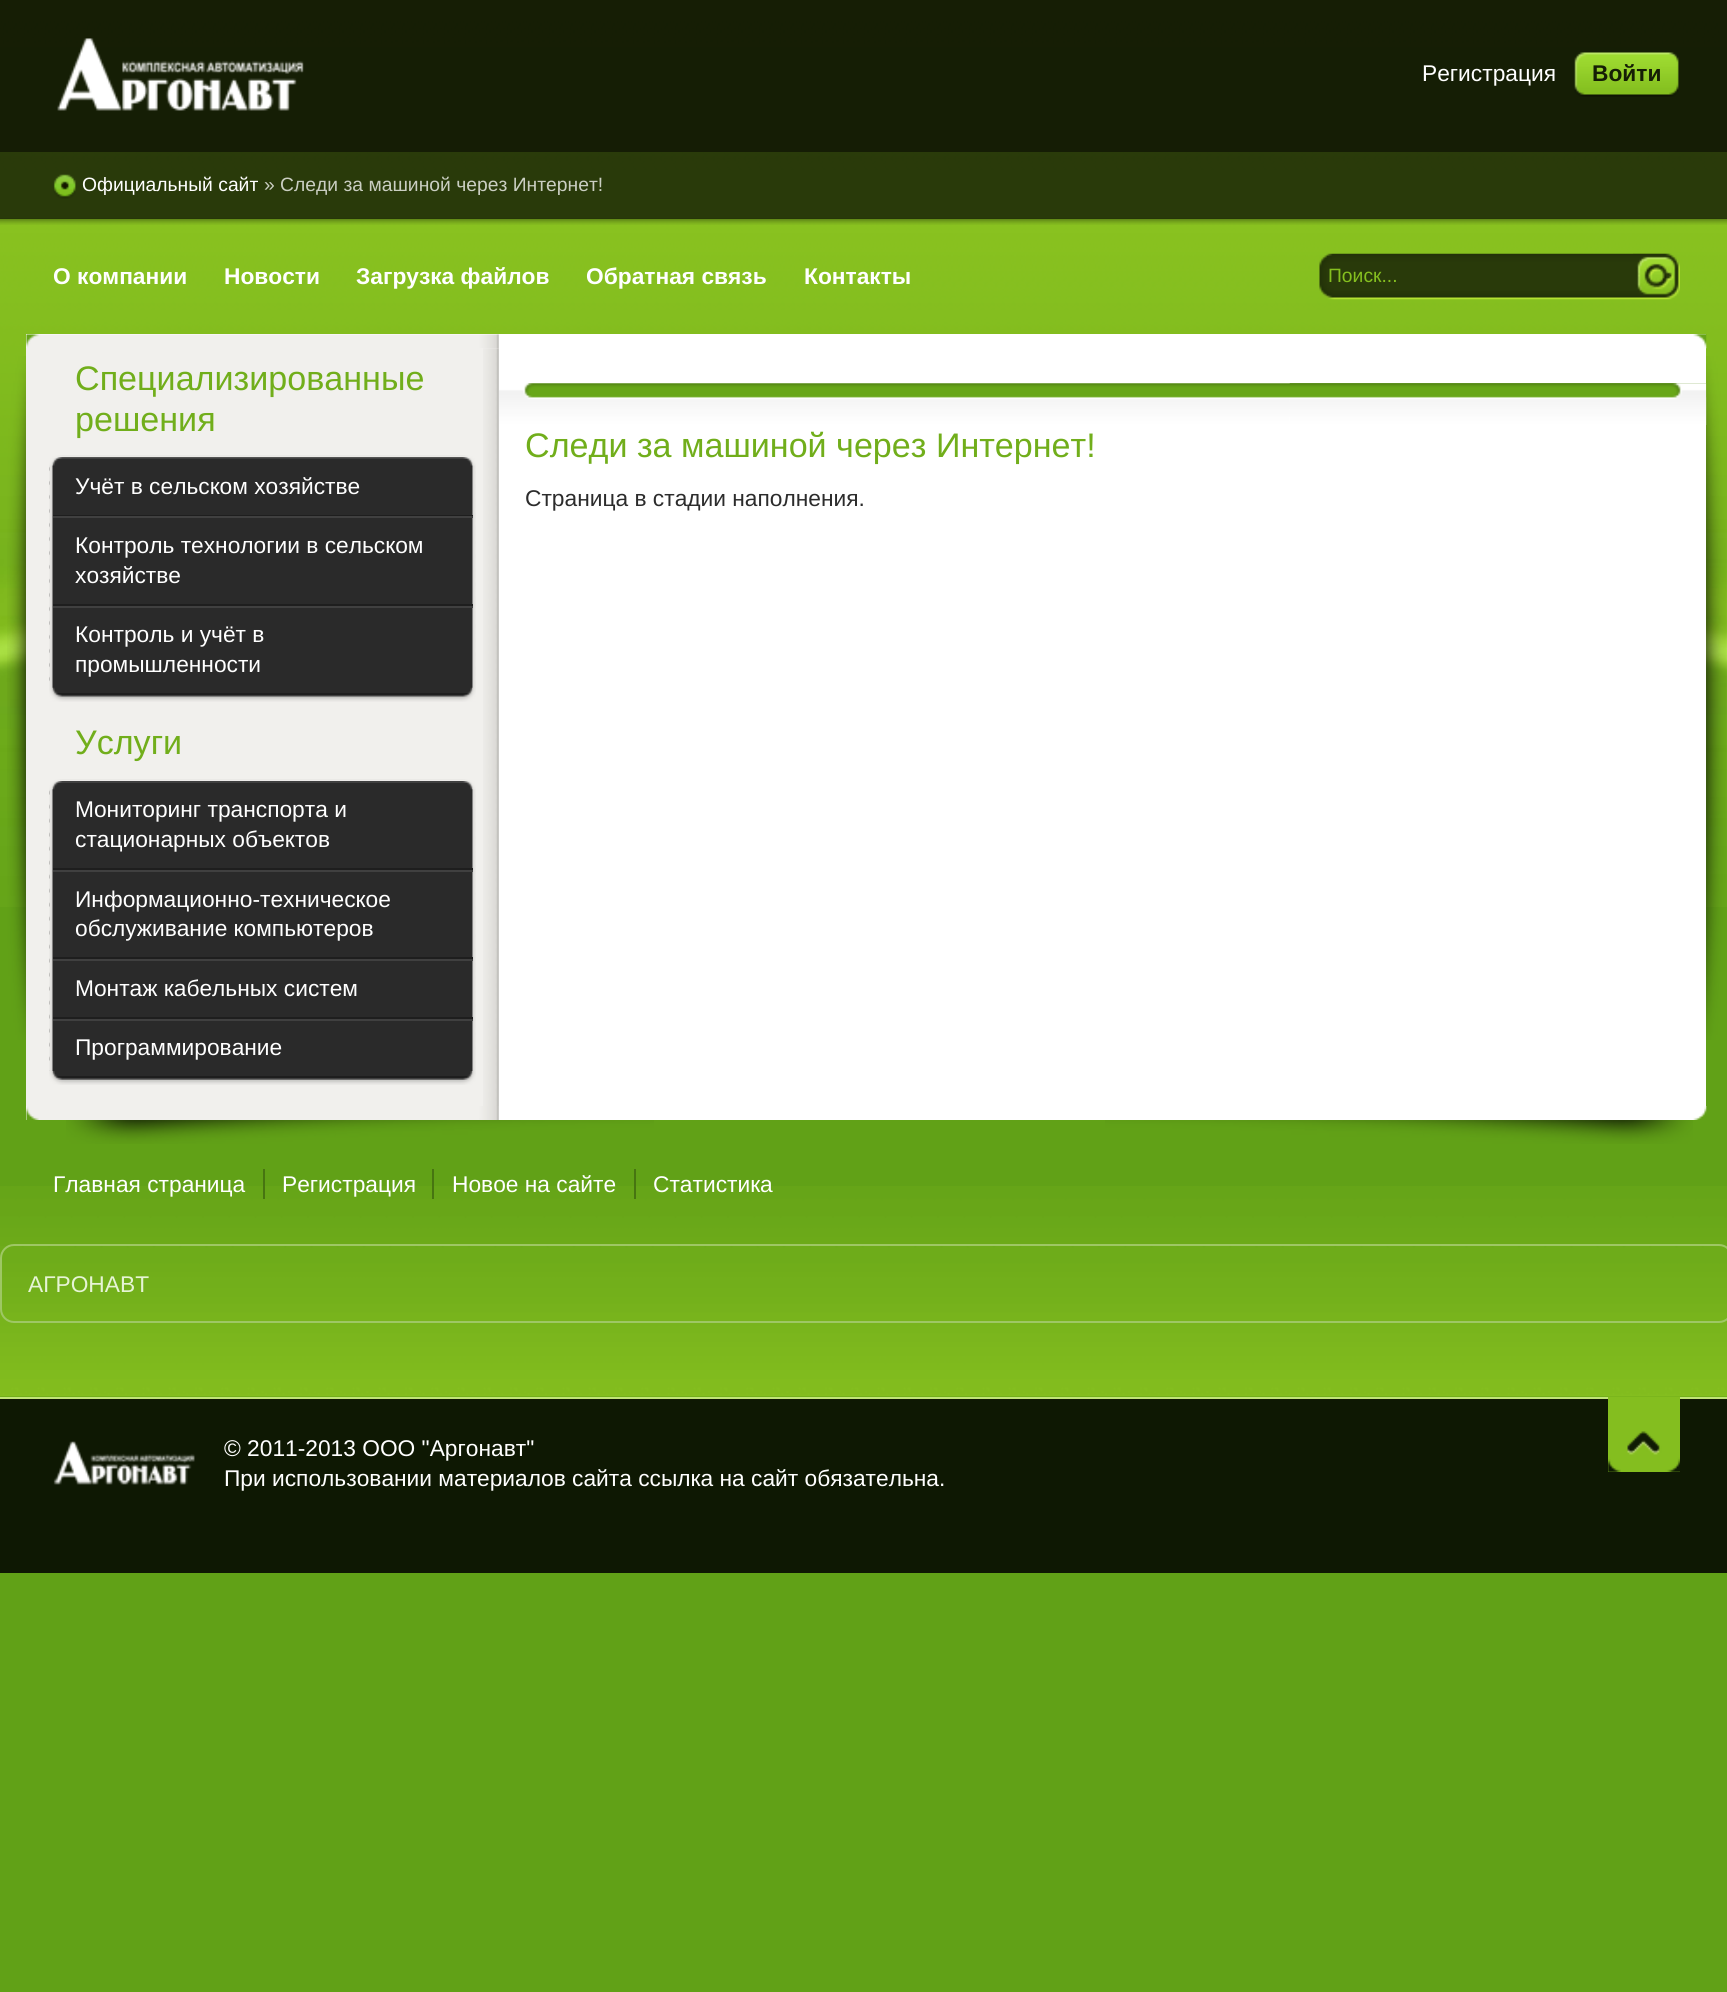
import math
import cairo



def rounded_rect(context, x, y, w, h, r):
    context.new_sub_path()
    for i, (u, v) in enumerate([(x + w - r, y + h - r), (x + r, y + h - r), (x + r, y + r), (x + w - r, y + r)]):
        context.arc(u, v, r, i * math.pi / 2, (i + 1) * math.pi / 2)
    context.close_path()


def draw_image(context, path, x, y, w, h):
    context.save()
    context.set_source_surface(cairo.ImageSurface.create_from_png(path), x, y)
    context.rectangle(x, y, w, h)
    context.fill()
    context.restore()


def draw(context):
    context.set_source_rgb(97 / 255, 161 / 255, 23 / 255)
    context.paint()
    draw_image(context, "images/1.png", 0, 0, 1727, 465)
    draw_image(context, "images/2.png", 0, 465, 1727, 442)
    draw_image(context, "images/3.png", 0, 218, 1727, 7)
    context.set_source_rgba(0, 0, 0, 0.85)
    context.rectangle(0, 0, 1727, 152)
    context.fill()
    draw_image(context, "images/4.png", 57, 38, 247, 73)
    draw_image(context, "images/5.png", 1574, 52, 105, 45)
    context.set_source_rgba(0, 0, 0, 0.7)
    context.rectangle(0, 152, 1727, 67)
    context.fill()
    draw_image(context, "images/6.png", 53, 174, 23, 25)
    draw_image(context, "images/7.png", 1319, 253, 361, 47)
    draw_image(context, "images/8.png", 1633, 253, 47, 46)
    draw_image(context, "images/9.png", 7, 356, 19, 684)
    draw_image(context, "images/10.png", 1706, 356, 20, 684)
    context.set_source_rgb(1, 1, 1)
    context.rectangle(26, 334, 1680, 14)
    context.fill()
    context.rectangle(499, 348, 1207, 758)
    context.fill()
    draw_image(context, "images/11.png", 1693, 334, 14, 15)
    draw_image(context, "images/12.png", 26, 334, 473, 14)
    context.set_source_rgb(241 / 255, 240 / 255, 237 / 255)
    context.rectangle(26, 348, 473, 758)
    context.fill()
    draw_image(context, "images/13.png", 483, 348, 16, 758)
    context.set_source_rgb(42 / 255, 42 / 255, 42 / 255)
    context.rectangle(49, 459, 424, 234)
    context.fill()
    draw_image(context, "images/14.png", 49, 460, 427, 233)
    context.set_source_rgb(64 / 255, 64 / 255, 64 / 255)
    context.rectangle(53, 457, 420, 2)
    context.fill()
    draw_image(context, "images/15.png", 49, 455, 427, 11)
    context.rectangle(53, 695, 420, 2)
    context.fill()
    context.set_source_rgb(30 / 255, 30 / 255, 30 / 255)
    context.rectangle(53, 515, 420, 1)
    context.fill()
    context.set_source_rgb(64 / 255, 64 / 255, 64 / 255)
    context.rectangle(53, 516, 420, 2)
    context.fill()
    context.set_source_rgb(30 / 255, 30 / 255, 30 / 255)
    context.rectangle(53, 604, 420, 2)
    context.fill()
    context.set_source_rgb(64 / 255, 64 / 255, 64 / 255)
    context.rectangle(53, 606, 420, 2)
    context.fill()
    context.set_source_rgb(30 / 255, 30 / 255, 30 / 255)
    context.rectangle(53, 693, 420, 2)
    context.fill()
    draw_image(context, "images/16.png", 49, 687, 427, 15)
    context.set_source_rgb(42 / 255, 42 / 255, 42 / 255)
    context.rectangle(49, 783, 424, 293)
    context.fill()
    draw_image(context, "images/17.png", 49, 784, 427, 292)
    context.set_source_rgb(64 / 255, 64 / 255, 64 / 255)
    context.rectangle(53, 781, 420, 2)
    context.fill()
    draw_image(context, "images/18.png", 49, 779, 427, 11)
    context.rectangle(53, 1078, 420, 2)
    context.fill()
    context.set_source_rgb(30 / 255, 30 / 255, 30 / 255)
    context.rectangle(53, 868, 420, 2)
    context.fill()
    context.set_source_rgb(64 / 255, 64 / 255, 64 / 255)
    context.rectangle(53, 870, 420, 2)
    context.fill()
    context.set_source_rgb(30 / 255, 30 / 255, 30 / 255)
    context.rectangle(53, 957, 420, 2)
    context.fill()
    context.set_source_rgb(64 / 255, 64 / 255, 64 / 255)
    context.rectangle(53, 959, 420, 2)
    context.fill()
    context.set_source_rgb(30 / 255, 30 / 255, 30 / 255)
    context.rectangle(53, 1017, 420, 2)
    context.fill()
    context.set_source_rgb(64 / 255, 64 / 255, 64 / 255)
    context.rectangle(53, 1019, 420, 2)
    context.fill()
    context.set_source_rgb(30 / 255, 30 / 255, 30 / 255)
    context.rectangle(53, 1076, 420, 2)
    context.fill()
    draw_image(context, "images/19.png", 49, 1071, 427, 14)
    draw_image(context, "images/20.png", 499, 383, 1208, 42)
    draw_image(context, "images/21.png", 1289, 383, 418, 42)
    context.set_source_rgb(1, 1, 1)
    context.rectangle(26, 1106, 1667, 14)
    context.fill()
    draw_image(context, "images/22.png", 1693, 1106, 14, 14)
    draw_image(context, "images/23.png", 26, 1106, 473, 14)
    draw_image(context, "images/24.png", 0, 1186, 1727, 211)
    draw_image(context, "images/25.png", 1105, 1120, 588, 24)
    draw_image(context, "images/26.png", 66, 1120, 588, 24)
    context.set_source_rgb(71 / 255, 117 / 255, 17 / 255)
    context.rectangle(263, 1169, 2, 30)
    context.fill()
    context.rectangle(432, 1169, 2, 30)
    context.fill()
    context.rectangle(634, 1169, 2, 30)
    context.fill()
    rounded_rect(context, 1, 1245, 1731, 77, 13)
    context.set_source_rgb(158 / 255, 199 / 255, 100 / 255)
    context.stroke()
    context.set_source_rgb(14 / 255, 24 / 255, 3 / 255)
    context.rectangle(0, 1399, 1727, 174)
    context.fill()
    context.set_source_rgb(193 / 255, 228 / 255, 120 / 255)
    context.rectangle(0, 1397, 1727, 2)
    context.fill()
    draw_image(context, "images/27.png", 53, 1441, 142, 44)
    context.set_source_rgb(132 / 255, 190 / 255, 31 / 255)
    context.rectangle(1608, 1397, 72, 75)
    context.fill()
    draw_image(context, "images/28.png", 1608, 1396, 72, 76)
    context.select_font_face("Liberation Sans")
    context.set_font_size(22.75)
    context.set_source_rgb(1, 1, 1)
    context.move_to(1422, 81)
    context.show_text("Регистрация")
    context.select_font_face("Liberation Sans", cairo.FontSlant.NORMAL, cairo.FontWeight.BOLD)
    context.set_source_rgb(21 / 255, 30 / 255, 5 / 255)
    context.move_to(1592, 81)
    context.show_text("Войти")
    context.select_font_face("Liberation Sans")
    context.set_font_size(19.3)
    context.set_source_rgb(1, 1, 1)
    context.move_to(82, 191)
    context.show_text("Официальный сайт")
    context.set_source_rgb(202 / 255, 206 / 255, 194 / 255)
    context.move_to(264, 191)
    context.show_text("» Следи за машиной через Интернет!")
    context.select_font_face("Liberation Sans", cairo.FontSlant.NORMAL, cairo.FontWeight.BOLD)
    context.set_font_size(22.75)
    context.set_source_rgb(1, 1, 1)
    context.move_to(53, 284)
    context.show_text("О компании")
    context.move_to(224, 284)
    context.show_text("Новости")
    context.move_to(356, 284)
    context.show_text("Загрузка файлов")
    context.move_to(586, 284)
    context.show_text("Обратная связь")
    context.move_to(804, 284)
    context.show_text("Контакты")
    context.select_font_face("Liberation Sans")
    context.set_font_size(19.3)
    context.set_source_rgb(133 / 255, 191 / 255, 31 / 255)
    context.move_to(1328, 282)
    context.show_text("Поиск...")
    context.set_font_size(34.1)
    context.set_source_rgb(113 / 255, 174 / 255, 27 / 255)
    context.move_to(75, 390)
    context.show_text("Специализированные")
    context.move_to(75, 431)
    context.show_text("решения")
    context.set_font_size(22.75)
    context.set_source_rgb(1, 1, 1)
    context.move_to(75, 494)
    context.show_text("Учёт в сельском хозяйстве")
    context.move_to(75, 553)
    context.show_text("Контроль технологии в сельском")
    context.move_to(75, 583)
    context.show_text("хозяйстве")
    context.move_to(75, 642)
    context.show_text("Контроль и учёт в")
    context.move_to(75, 672)
    context.show_text("промышленности")
    context.set_font_size(34.1)
    context.set_source_rgb(113 / 255, 174 / 255, 27 / 255)
    context.move_to(75, 754)
    context.show_text("Услуги")
    context.set_font_size(22.75)
    context.set_source_rgb(1, 1, 1)
    context.move_to(75, 817)
    context.show_text("Мониторинг транспорта и")
    context.move_to(75, 847)
    context.show_text("стационарных объектов")
    context.move_to(75, 907)
    context.show_text("Информационно-техническое")
    context.move_to(75, 936)
    context.show_text("обслуживание компьютеров")
    context.move_to(75, 996)
    context.show_text("Монтаж кабельных систем")
    context.move_to(75, 1055)
    context.show_text("Программирование")
    context.set_font_size(34.1)
    context.set_source_rgb(113 / 255, 174 / 255, 27 / 255)
    context.move_to(525, 457)
    context.show_text("Следи за машиной через Интернет!")
    context.set_font_size(22.75)
    context.set_source_rgb(44 / 255, 44 / 255, 44 / 255)
    context.move_to(525, 506)
    context.show_text("Страница в стадии наполнения.")
    context.set_source_rgb(1, 1, 1)
    context.move_to(53, 1192)
    context.show_text("Главная страница")
    context.move_to(282, 1192)
    context.show_text("Регистрация")
    context.move_to(452, 1192)
    context.show_text("Новое на сайте")
    context.move_to(653, 1192)
    context.show_text("Статистика")
    context.set_source_rgb(230 / 255, 244 / 255, 213 / 255)
    context.move_to(28, 1292)
    context.show_text("АГРОНАВТ")
    context.set_source_rgb(1, 1, 1)
    context.move_to(224, 1456)
    context.show_text("© 2011-2013 ООО \"Аргонавт\"")
    context.move_to(224, 1486)
    context.show_text("При использовании материалов сайта ссылка на сайт обязательна.")


surface = cairo.ImageSurface(cairo.Format.RGB24, 1727, 1992)
context = cairo.Context(surface)
options = cairo.FontOptions()
options.set_hint_metrics(cairo.HintMetrics.OFF)
options.set_hint_style(cairo.HintStyle.NONE)
context.set_font_options(options)
context.set_miter_limit(4)
draw(context)
surface.write_to_png("out.png")
